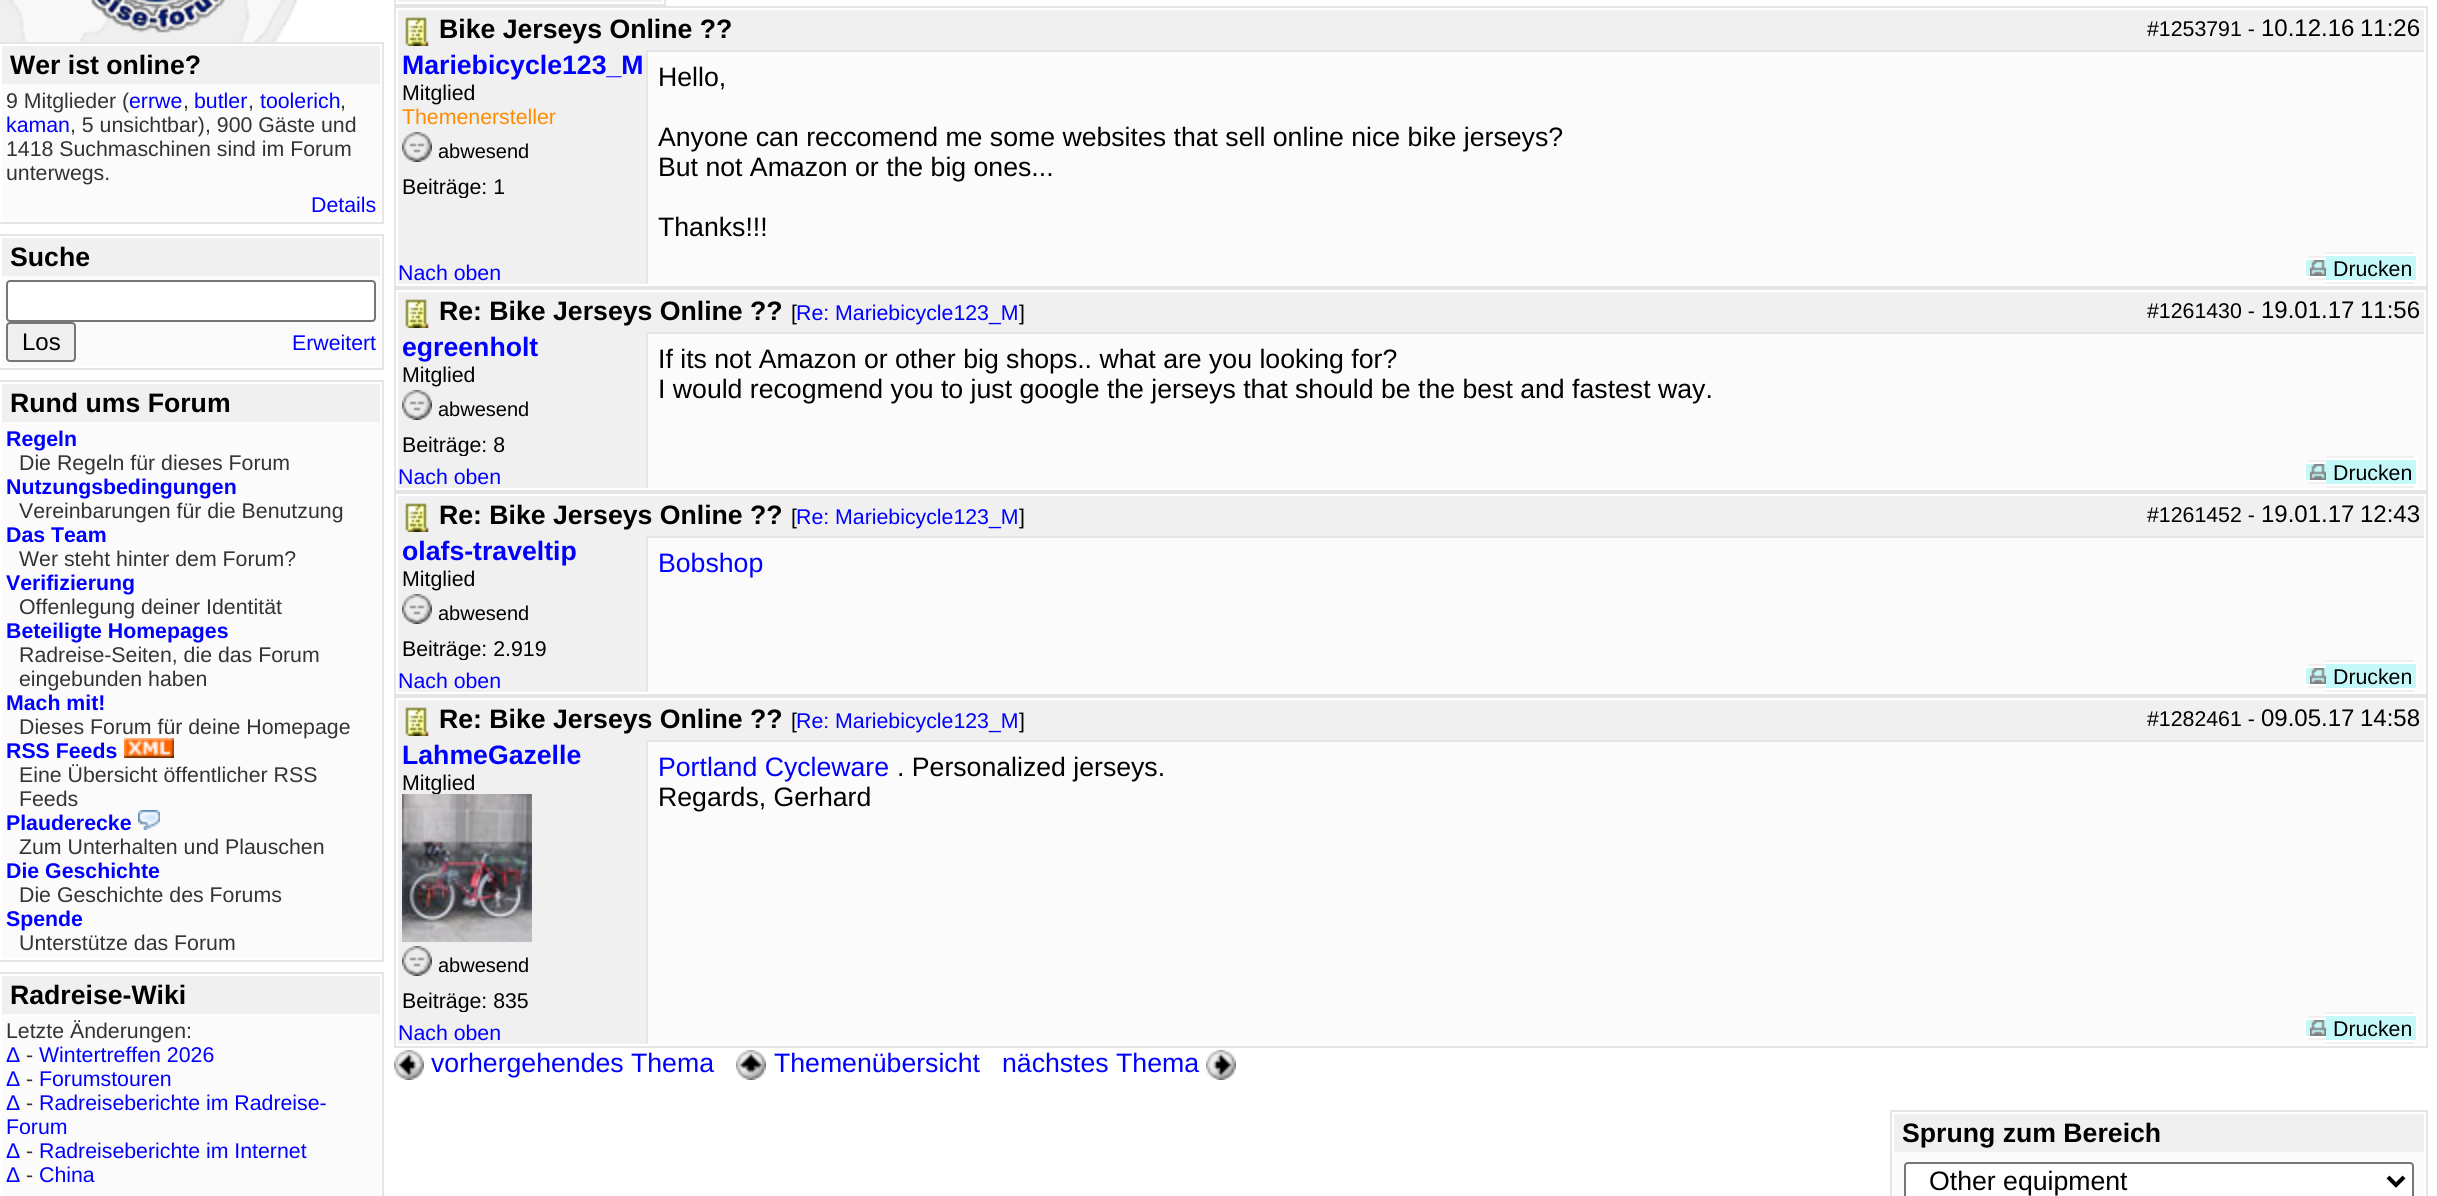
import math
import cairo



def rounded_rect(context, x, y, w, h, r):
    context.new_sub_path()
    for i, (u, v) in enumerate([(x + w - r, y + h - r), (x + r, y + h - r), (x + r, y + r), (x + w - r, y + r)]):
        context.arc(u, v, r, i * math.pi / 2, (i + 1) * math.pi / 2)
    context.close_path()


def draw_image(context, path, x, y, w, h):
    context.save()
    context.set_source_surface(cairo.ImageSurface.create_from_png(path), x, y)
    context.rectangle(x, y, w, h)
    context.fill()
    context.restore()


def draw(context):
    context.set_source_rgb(1, 1, 1)
    context.paint()
    draw_image(context, "images/1.png", 0, 0, 298, 42)
    draw_image(context, "images/2.png", 90, 0, 136, 33)
    context.set_source_rgb(229 / 255, 229 / 255, 229 / 255)
    context.rectangle(0, 42, 384, 2)
    context.fill()
    context.rectangle(382, 42, 2, 182)
    context.fill()
    context.rectangle(0, 222, 384, 2)
    context.fill()
    context.set_source_rgb(240 / 255, 240 / 255, 240 / 255)
    context.rectangle(2, 46, 378, 38)
    context.fill()
    context.set_source_rgb(251 / 255, 251 / 255, 251 / 255)
    context.rectangle(2, 84, 378, 136)
    context.fill()
    context.set_source_rgb(229 / 255, 229 / 255, 229 / 255)
    context.rectangle(0, 234, 384, 2)
    context.fill()
    context.rectangle(382, 234, 2, 136)
    context.fill()
    context.rectangle(0, 368, 384, 2)
    context.fill()
    context.set_source_rgb(240 / 255, 240 / 255, 240 / 255)
    context.rectangle(2, 238, 378, 38)
    context.fill()
    context.set_source_rgb(251 / 255, 251 / 255, 251 / 255)
    context.rectangle(2, 276, 378, 90)
    context.fill()
    context.set_source_rgb(1, 1, 1)
    rounded_rect(context, 7, 281, 368, 40, 3)
    context.fill_preserve()
    context.set_source_rgb(118 / 255, 118 / 255, 118 / 255)
    context.stroke()
    context.set_source_rgb(239 / 255, 239 / 255, 239 / 255)
    rounded_rect(context, 7, 323, 68, 38, 3)
    context.fill_preserve()
    context.set_source_rgb(118 / 255, 118 / 255, 118 / 255)
    context.stroke()
    context.set_source_rgb(229 / 255, 229 / 255, 229 / 255)
    context.rectangle(0, 380, 384, 2)
    context.fill()
    context.rectangle(382, 380, 2, 582)
    context.fill()
    context.rectangle(0, 960, 384, 2)
    context.fill()
    context.set_source_rgb(240 / 255, 240 / 255, 240 / 255)
    context.rectangle(2, 384, 378, 38)
    context.fill()
    context.set_source_rgb(251 / 255, 251 / 255, 251 / 255)
    context.rectangle(2, 422, 378, 536)
    context.fill()
    draw_image(context, "images/4.png", 138, 810, 22, 20)
    context.set_source_rgb(229 / 255, 229 / 255, 229 / 255)
    context.rectangle(0, 972, 384, 2)
    context.fill()
    context.rectangle(382, 972, 2, 224)
    context.fill()
    context.set_source_rgb(240 / 255, 240 / 255, 240 / 255)
    context.rectangle(2, 976, 378, 38)
    context.fill()
    context.set_source_rgb(251 / 255, 251 / 255, 251 / 255)
    context.rectangle(2, 1014, 378, 182)
    context.fill()
    context.rectangle(395, -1, 270, 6)
    context.set_source_rgb(229 / 255, 229 / 255, 229 / 255)
    context.stroke()
    context.set_source_rgb(240 / 255, 240 / 255, 240 / 255)
    context.rectangle(398, 0, 264, 2)
    context.fill()
    context.rectangle(395, 7, 2032, 280)
    context.set_source_rgb(229 / 255, 229 / 255, 229 / 255)
    context.stroke()
    context.set_source_rgb(240 / 255, 240 / 255, 240 / 255)
    context.rectangle(398, 10, 2026, 40)
    context.fill()
    draw_image(context, "images/5.png", 405, 17, 24, 29)
    context.rectangle(398, 50, 248, 234)
    context.fill()
    draw_image(context, "images/6.png", 402, 132, 30, 30)
    context.set_source_rgb(251 / 255, 251 / 255, 251 / 255)
    context.rectangle(648, 52, 1776, 232)
    context.fill()
    context.set_source_rgb(229 / 255, 229 / 255, 229 / 255)
    context.rectangle(646, 50, 1778, 2)
    context.fill()
    context.rectangle(646, 50, 2, 234)
    context.fill()
    context.set_source_rgb(240 / 255, 240 / 255, 240 / 255)
    context.rectangle(2308, 256, 18, 2)
    context.fill()
    context.rectangle(2308, 278, 18, 2)
    context.fill()
    context.rectangle(2308, 256, 2, 24)
    context.fill()
    context.set_source_rgb(197 / 255, 249 / 255, 249 / 255)
    context.rectangle(2306, 260, 20, 16)
    context.fill()
    draw_image(context, "images/7.png", 2310, 260, 16, 16)
    context.set_source_rgb(240 / 255, 240 / 255, 240 / 255)
    context.rectangle(2326, 252, 88, 2)
    context.fill()
    context.rectangle(2326, 282, 88, 2)
    context.fill()
    context.set_source_rgb(1, 1, 1)
    context.rectangle(2304, 258, 22, 2)
    context.fill()
    context.rectangle(2304, 276, 22, 2)
    context.fill()
    context.rectangle(2304, 258, 2, 20)
    context.fill()
    context.set_source_rgb(197 / 255, 249 / 255, 249 / 255)
    context.rectangle(2326, 256, 90, 24)
    context.fill()
    context.set_source_rgb(1, 1, 1)
    context.rectangle(2326, 254, 92, 2)
    context.fill()
    context.rectangle(2416, 254, 2, 28)
    context.fill()
    context.rectangle(2326, 280, 92, 2)
    context.fill()
    context.rectangle(395, 289, 2032, 202)
    context.set_source_rgb(229 / 255, 229 / 255, 229 / 255)
    context.stroke()
    context.set_source_rgb(240 / 255, 240 / 255, 240 / 255)
    context.rectangle(398, 292, 2026, 40)
    context.fill()
    draw_image(context, "images/5.png", 405, 299, 24, 29)
    context.rectangle(398, 332, 248, 156)
    context.fill()
    draw_image(context, "images/6.png", 402, 390, 30, 30)
    context.set_source_rgb(251 / 255, 251 / 255, 251 / 255)
    context.rectangle(648, 334, 1776, 154)
    context.fill()
    context.set_source_rgb(229 / 255, 229 / 255, 229 / 255)
    context.rectangle(646, 332, 1778, 2)
    context.fill()
    context.rectangle(646, 332, 2, 156)
    context.fill()
    context.set_source_rgb(240 / 255, 240 / 255, 240 / 255)
    context.rectangle(2308, 460, 18, 2)
    context.fill()
    context.rectangle(2308, 482, 18, 2)
    context.fill()
    context.rectangle(2308, 460, 2, 24)
    context.fill()
    context.set_source_rgb(197 / 255, 249 / 255, 249 / 255)
    context.rectangle(2306, 464, 20, 16)
    context.fill()
    draw_image(context, "images/7.png", 2310, 464, 16, 16)
    context.set_source_rgb(240 / 255, 240 / 255, 240 / 255)
    context.rectangle(2326, 456, 88, 2)
    context.fill()
    context.rectangle(2326, 486, 88, 2)
    context.fill()
    context.set_source_rgb(1, 1, 1)
    context.rectangle(2304, 462, 22, 2)
    context.fill()
    context.rectangle(2304, 480, 22, 2)
    context.fill()
    context.rectangle(2304, 462, 2, 20)
    context.fill()
    context.set_source_rgb(197 / 255, 249 / 255, 249 / 255)
    context.rectangle(2326, 460, 90, 24)
    context.fill()
    context.set_source_rgb(1, 1, 1)
    context.rectangle(2326, 458, 92, 2)
    context.fill()
    context.rectangle(2416, 458, 2, 28)
    context.fill()
    context.rectangle(2326, 484, 92, 2)
    context.fill()
    context.rectangle(395, 493, 2032, 202)
    context.set_source_rgb(229 / 255, 229 / 255, 229 / 255)
    context.stroke()
    context.set_source_rgb(240 / 255, 240 / 255, 240 / 255)
    context.rectangle(398, 496, 2026, 40)
    context.fill()
    draw_image(context, "images/5.png", 405, 503, 24, 29)
    context.rectangle(398, 536, 248, 156)
    context.fill()
    draw_image(context, "images/6.png", 402, 594, 30, 30)
    context.set_source_rgb(251 / 255, 251 / 255, 251 / 255)
    context.rectangle(648, 538, 1776, 154)
    context.fill()
    context.set_source_rgb(229 / 255, 229 / 255, 229 / 255)
    context.rectangle(646, 536, 1778, 2)
    context.fill()
    context.rectangle(646, 536, 2, 156)
    context.fill()
    context.set_source_rgb(240 / 255, 240 / 255, 240 / 255)
    context.rectangle(2308, 664, 18, 2)
    context.fill()
    context.rectangle(2308, 686, 18, 2)
    context.fill()
    context.rectangle(2308, 664, 2, 24)
    context.fill()
    context.set_source_rgb(197 / 255, 249 / 255, 249 / 255)
    context.rectangle(2306, 668, 20, 16)
    context.fill()
    draw_image(context, "images/7.png", 2310, 668, 16, 16)
    context.set_source_rgb(240 / 255, 240 / 255, 240 / 255)
    context.rectangle(2326, 660, 88, 2)
    context.fill()
    context.rectangle(2326, 690, 88, 2)
    context.fill()
    context.set_source_rgb(1, 1, 1)
    context.rectangle(2304, 666, 22, 2)
    context.fill()
    context.rectangle(2304, 684, 22, 2)
    context.fill()
    context.rectangle(2304, 666, 2, 20)
    context.fill()
    context.set_source_rgb(197 / 255, 249 / 255, 249 / 255)
    context.rectangle(2326, 664, 90, 24)
    context.fill()
    context.set_source_rgb(1, 1, 1)
    context.rectangle(2326, 662, 92, 2)
    context.fill()
    context.rectangle(2416, 662, 2, 28)
    context.fill()
    context.rectangle(2326, 688, 92, 2)
    context.fill()
    context.rectangle(395, 697, 2032, 350)
    context.set_source_rgb(229 / 255, 229 / 255, 229 / 255)
    context.stroke()
    context.set_source_rgb(240 / 255, 240 / 255, 240 / 255)
    context.rectangle(398, 700, 2026, 40)
    context.fill()
    draw_image(context, "images/5.png", 405, 707, 24, 29)
    context.rectangle(398, 740, 248, 304)
    context.fill()
    draw_image(context, "images/6.png", 402, 946, 30, 30)
    context.set_source_rgb(251 / 255, 251 / 255, 251 / 255)
    context.rectangle(648, 742, 1776, 302)
    context.fill()
    context.set_source_rgb(229 / 255, 229 / 255, 229 / 255)
    context.rectangle(646, 740, 1778, 2)
    context.fill()
    context.rectangle(646, 740, 2, 304)
    context.fill()
    context.set_source_rgb(240 / 255, 240 / 255, 240 / 255)
    context.rectangle(2308, 1016, 18, 2)
    context.fill()
    context.rectangle(2308, 1038, 18, 2)
    context.fill()
    context.rectangle(2308, 1016, 2, 24)
    context.fill()
    context.set_source_rgb(197 / 255, 249 / 255, 249 / 255)
    context.rectangle(2306, 1020, 20, 16)
    context.fill()
    draw_image(context, "images/7.png", 2310, 1020, 16, 16)
    context.set_source_rgb(240 / 255, 240 / 255, 240 / 255)
    context.rectangle(2326, 1012, 88, 2)
    context.fill()
    context.rectangle(2326, 1042, 88, 2)
    context.fill()
    context.set_source_rgb(1, 1, 1)
    context.rectangle(2304, 1018, 22, 2)
    context.fill()
    context.rectangle(2304, 1036, 22, 2)
    context.fill()
    context.rectangle(2304, 1018, 2, 20)
    context.fill()
    context.set_source_rgb(197 / 255, 249 / 255, 249 / 255)
    context.rectangle(2326, 1016, 90, 24)
    context.fill()
    context.set_source_rgb(1, 1, 1)
    context.rectangle(2326, 1014, 92, 2)
    context.fill()
    context.rectangle(2416, 1014, 2, 28)
    context.fill()
    context.rectangle(2326, 1040, 92, 2)
    context.fill()
    draw_image(context, "images/9.png", 394, 1050, 30, 30)
    draw_image(context, "images/10.png", 736, 1050, 30, 30)
    draw_image(context, "images/11.png", 1206, 1050, 30, 30)
    context.rectangle(1891, 1111, 536, 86)
    context.set_source_rgb(229 / 255, 229 / 255, 229 / 255)
    context.stroke()
    context.set_source_rgb(240 / 255, 240 / 255, 240 / 255)
    context.rectangle(1894, 1114, 530, 38)
    context.fill()
    context.set_source_rgb(251 / 255, 251 / 255, 251 / 255)
    context.rectangle(1894, 1152, 530, 44)
    context.fill()
    context.set_source_rgb(1, 1, 1)
    rounded_rect(context, 1905, 1163, 508, 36, 3)
    context.fill_preserve()
    context.set_source_rgb(118 / 255, 118 / 255, 118 / 255)
    context.stroke()
    context.new_path()
    context.move_to(2388, 1177)
    context.line_to(2396, 1185)
    context.line_to(2404, 1177)
    context.set_source_rgb(0, 0, 0)
    context.set_line_width(4)
    context.stroke()
    context.select_font_face("Liberation Sans", cairo.FontSlant.NORMAL, cairo.FontWeight.BOLD)
    context.set_font_size(26.65)
    context.move_to(10, 74)
    context.show_text("Wer ist online?")
    context.select_font_face("Liberation Sans")
    context.set_font_size(21.3)
    context.set_source_rgb(51 / 255, 51 / 255, 51 / 255)
    context.move_to(6, 108)
    context.show_text("9 Mitglieder (")
    context.set_source_rgb(0, 0, 1)
    context.move_to(129, 108)
    context.show_text("errwe")
    context.set_source_rgb(51 / 255, 51 / 255, 51 / 255)
    context.move_to(183, 108)
    context.show_text(",")
    context.set_source_rgb(0, 0, 1)
    context.move_to(194, 108)
    context.show_text("butler")
    context.set_source_rgb(51 / 255, 51 / 255, 51 / 255)
    context.move_to(248, 108)
    context.show_text(",")
    context.set_source_rgb(0, 0, 1)
    context.move_to(260, 108)
    context.show_text("toolerich")
    context.set_source_rgb(51 / 255, 51 / 255, 51 / 255)
    context.move_to(340, 108)
    context.show_text(",")
    context.set_source_rgb(0, 0, 1)
    context.move_to(6, 132)
    context.show_text("kaman")
    context.set_source_rgb(51 / 255, 51 / 255, 51 / 255)
    context.move_to(70, 132)
    context.show_text(", 5 unsichtbar), 900 Gäste und")
    context.move_to(6, 156)
    context.show_text("1418 Suchmaschinen sind im Forum")
    context.move_to(6, 180)
    context.show_text("unterwegs.")
    context.set_source_rgb(0, 0, 1)
    context.move_to(311, 212)
    context.show_text("Details")
    context.select_font_face("Liberation Sans", cairo.FontSlant.NORMAL, cairo.FontWeight.BOLD)
    context.set_font_size(26.65)
    context.set_source_rgb(0, 0, 0)
    context.move_to(10, 266)
    context.show_text("Suche")
    context.select_font_face("Liberation Sans")
    context.set_font_size(24)
    context.move_to(22, 350)
    context.show_text("Los")
    context.set_font_size(21.3)
    context.set_source_rgb(0, 0, 1)
    context.move_to(292, 350)
    context.show_text("Erweitert")
    context.select_font_face("Liberation Sans", cairo.FontSlant.NORMAL, cairo.FontWeight.BOLD)
    context.set_font_size(26.65)
    context.set_source_rgb(0, 0, 0)
    context.move_to(10, 412)
    context.show_text("Rund ums Forum")
    context.set_font_size(21.3)
    context.set_source_rgb(0, 0, 1)
    context.move_to(6, 446)
    context.show_text("Regeln")
    context.select_font_face("Liberation Sans")
    context.set_source_rgb(51 / 255, 51 / 255, 51 / 255)
    context.move_to(19, 470)
    context.show_text("Die Regeln für dieses Forum")
    context.select_font_face("Liberation Sans", cairo.FontSlant.NORMAL, cairo.FontWeight.BOLD)
    context.set_source_rgb(0, 0, 1)
    context.move_to(6, 494)
    context.show_text("Nutzungsbedingungen")
    context.select_font_face("Liberation Sans")
    context.set_source_rgb(51 / 255, 51 / 255, 51 / 255)
    context.move_to(19, 518)
    context.show_text("Vereinbarungen für die Benutzung")
    context.select_font_face("Liberation Sans", cairo.FontSlant.NORMAL, cairo.FontWeight.BOLD)
    context.set_source_rgb(0, 0, 1)
    context.move_to(6, 542)
    context.show_text("Das Team")
    context.select_font_face("Liberation Sans")
    context.set_source_rgb(51 / 255, 51 / 255, 51 / 255)
    context.move_to(19, 566)
    context.show_text("Wer steht hinter dem Forum?")
    context.select_font_face("Liberation Sans", cairo.FontSlant.NORMAL, cairo.FontWeight.BOLD)
    context.set_source_rgb(0, 0, 1)
    context.move_to(6, 590)
    context.show_text("Verifizierung")
    context.select_font_face("Liberation Sans")
    context.set_source_rgb(51 / 255, 51 / 255, 51 / 255)
    context.move_to(19, 614)
    context.show_text("Offenlegung deiner Identität")
    context.select_font_face("Liberation Sans", cairo.FontSlant.NORMAL, cairo.FontWeight.BOLD)
    context.set_source_rgb(0, 0, 1)
    context.move_to(6, 638)
    context.show_text("Beteiligte Homepages")
    context.select_font_face("Liberation Sans")
    context.set_source_rgb(51 / 255, 51 / 255, 51 / 255)
    context.move_to(19, 662)
    context.show_text("Radreise-Seiten, die das Forum")
    context.move_to(19, 686)
    context.show_text("eingebunden haben")
    context.select_font_face("Liberation Sans", cairo.FontSlant.NORMAL, cairo.FontWeight.BOLD)
    context.set_source_rgb(0, 0, 1)
    context.move_to(6, 710)
    context.show_text("Mach mit!")
    context.select_font_face("Liberation Sans")
    context.set_source_rgb(51 / 255, 51 / 255, 51 / 255)
    context.move_to(19, 734)
    context.show_text("Dieses Forum für deine Homepage")
    context.select_font_face("Liberation Sans", cairo.FontSlant.NORMAL, cairo.FontWeight.BOLD)
    context.set_source_rgb(0, 0, 1)
    context.move_to(6, 758)
    context.show_text("RSS Feeds")
    draw_image(context, "images/3.png", 124, 738, 50, 20)
    context.select_font_face("Liberation Sans")
    context.set_source_rgb(51 / 255, 51 / 255, 51 / 255)
    context.move_to(19, 782)
    context.show_text("Eine Übersicht öffentlicher RSS")
    context.move_to(19, 806)
    context.show_text("Feeds")
    context.select_font_face("Liberation Sans", cairo.FontSlant.NORMAL, cairo.FontWeight.BOLD)
    context.set_source_rgb(0, 0, 1)
    context.move_to(6, 830)
    context.show_text("Plauderecke")
    context.select_font_face("Liberation Sans")
    context.set_source_rgb(51 / 255, 51 / 255, 51 / 255)
    context.move_to(19, 854)
    context.show_text("Zum Unterhalten und Plauschen")
    context.select_font_face("Liberation Sans", cairo.FontSlant.NORMAL, cairo.FontWeight.BOLD)
    context.set_source_rgb(0, 0, 1)
    context.move_to(6, 878)
    context.show_text("Die Geschichte")
    context.select_font_face("Liberation Sans")
    context.set_source_rgb(51 / 255, 51 / 255, 51 / 255)
    context.move_to(19, 902)
    context.show_text("Die Geschichte des Forums")
    context.select_font_face("Liberation Sans", cairo.FontSlant.NORMAL, cairo.FontWeight.BOLD)
    context.set_source_rgb(0, 0, 1)
    context.move_to(6, 926)
    context.show_text("Spende")
    context.select_font_face("Liberation Sans")
    context.set_source_rgb(51 / 255, 51 / 255, 51 / 255)
    context.move_to(19, 950)
    context.show_text("Unterstütze das Forum")
    context.select_font_face("Liberation Sans", cairo.FontSlant.NORMAL, cairo.FontWeight.BOLD)
    context.set_font_size(26.65)
    context.set_source_rgb(0, 0, 0)
    context.move_to(10, 1004)
    context.show_text("Radreise-Wiki")
    context.select_font_face("Liberation Sans")
    context.set_font_size(21.3)
    context.set_source_rgb(51 / 255, 51 / 255, 51 / 255)
    context.move_to(6, 1038)
    context.show_text("Letzte Änderungen:")
    context.set_source_rgb(0, 0, 1)
    context.move_to(6, 1062)
    context.show_text("Δ")
    context.set_source_rgb(51 / 255, 51 / 255, 51 / 255)
    context.move_to(26, 1062)
    context.show_text("-")
    context.set_source_rgb(0, 0, 1)
    context.move_to(39, 1062)
    context.show_text("Wintertreffen 2026")
    context.move_to(6, 1086)
    context.show_text("Δ")
    context.set_source_rgb(51 / 255, 51 / 255, 51 / 255)
    context.move_to(26, 1086)
    context.show_text("-")
    context.set_source_rgb(0, 0, 1)
    context.move_to(39, 1086)
    context.show_text("Forumstouren")
    context.move_to(6, 1110)
    context.show_text("Δ")
    context.set_source_rgb(51 / 255, 51 / 255, 51 / 255)
    context.move_to(26, 1110)
    context.show_text("-")
    context.set_source_rgb(0, 0, 1)
    context.move_to(39, 1110)
    context.show_text("Radreiseberichte im Radreise-")
    context.move_to(6, 1134)
    context.show_text("Forum")
    context.move_to(6, 1158)
    context.show_text("Δ")
    context.set_source_rgb(51 / 255, 51 / 255, 51 / 255)
    context.move_to(26, 1158)
    context.show_text("-")
    context.set_source_rgb(0, 0, 1)
    context.move_to(39, 1158)
    context.show_text("Radreiseberichte im Internet")
    context.move_to(6, 1182)
    context.show_text("Δ")
    context.set_source_rgb(51 / 255, 51 / 255, 51 / 255)
    context.move_to(26, 1182)
    context.show_text("-")
    context.set_source_rgb(0, 0, 1)
    context.move_to(39, 1182)
    context.show_text("China")
    context.select_font_face("Liberation Sans", cairo.FontSlant.NORMAL, cairo.FontWeight.BOLD)
    context.set_font_size(26.65)
    context.set_source_rgb(0, 0, 0)
    context.move_to(439, 38)
    context.show_text("Bike Jerseys Online ??")
    context.select_font_face("Liberation Sans")
    context.set_font_size(21.3)
    context.move_to(2147, 36)
    context.show_text("#1253791 -")
    context.set_font_size(24)
    context.move_to(2261, 36)
    context.show_text("10.12.16")
    context.move_to(2360, 36)
    context.show_text("11:26")
    context.select_font_face("Liberation Sans", cairo.FontSlant.NORMAL, cairo.FontWeight.BOLD)
    context.set_font_size(26.65)
    context.set_source_rgb(0, 0, 1)
    context.move_to(402, 74)
    context.show_text("Mariebicycle123_M")
    context.select_font_face("Liberation Sans")
    context.set_font_size(21.3)
    context.set_source_rgb(0, 0, 0)
    context.move_to(402, 100)
    context.show_text("Mitglied")
    context.set_source_rgb(1, 138 / 255, 0)
    context.move_to(402, 124)
    context.show_text("Themenersteller")
    context.set_font_size(20)
    context.set_source_rgb(0, 0, 0)
    context.move_to(438, 158)
    context.show_text("abwesend")
    context.save()
    context.rectangle(402, 50, 240, 148)
    context.clip()
    context.set_font_size(21.3)
    context.move_to(402, 194)
    context.show_text("Beiträge: 1")
    context.restore()
    context.set_font_size(26.65)
    context.move_to(658, 86)
    context.show_text("Hello,")
    context.move_to(658, 146)
    context.show_text("Anyone can reccomend me some websites that sell online nice bike jerseys?")
    context.move_to(658, 176)
    context.show_text("But not Amazon or the big ones...")
    context.move_to(658, 236)
    context.show_text("Thanks!!!")
    context.set_font_size(21.3)
    context.set_source_rgb(0, 0, 1)
    context.move_to(398, 280)
    context.show_text("Nach oben")
    context.set_source_rgb(0, 0, 0)
    context.move_to(2333, 276)
    context.show_text("Drucken")
    context.select_font_face("Liberation Sans", cairo.FontSlant.NORMAL, cairo.FontWeight.BOLD)
    context.set_font_size(26.65)
    context.move_to(439, 320)
    context.show_text("Re: Bike Jerseys Online ??")
    context.select_font_face("Liberation Sans")
    context.set_font_size(21.3)
    context.move_to(791, 320)
    context.show_text("[")
    context.set_source_rgb(0, 0, 1)
    context.move_to(796, 320)
    context.show_text("Re: Mariebicycle123_M")
    context.set_source_rgb(0, 0, 0)
    context.move_to(1019, 320)
    context.show_text("]")
    context.move_to(2147, 318)
    context.show_text("#1261430 -")
    context.set_font_size(24)
    context.move_to(2261, 318)
    context.show_text("19.01.17")
    context.move_to(2360, 318)
    context.show_text("11:56")
    context.select_font_face("Liberation Sans", cairo.FontSlant.NORMAL, cairo.FontWeight.BOLD)
    context.set_font_size(26.65)
    context.set_source_rgb(0, 0, 1)
    context.move_to(402, 356)
    context.show_text("egreenholt")
    context.select_font_face("Liberation Sans")
    context.set_font_size(21.3)
    context.set_source_rgb(0, 0, 0)
    context.move_to(402, 382)
    context.show_text("Mitglied")
    context.set_font_size(20)
    context.move_to(438, 416)
    context.show_text("abwesend")
    context.save()
    context.rectangle(402, 332, 240, 124)
    context.clip()
    context.set_font_size(21.3)
    context.move_to(402, 452)
    context.show_text("Beiträge: 8")
    context.restore()
    context.set_font_size(26.65)
    context.move_to(658, 368)
    context.show_text("If its not Amazon or other big shops.. what are you looking for?")
    context.move_to(658, 398)
    context.show_text("I would recogmend you to just google the jerseys that should be the best and fastest way.")
    context.set_font_size(21.3)
    context.set_source_rgb(0, 0, 1)
    context.move_to(398, 484)
    context.show_text("Nach oben")
    context.set_source_rgb(0, 0, 0)
    context.move_to(2333, 480)
    context.show_text("Drucken")
    context.select_font_face("Liberation Sans", cairo.FontSlant.NORMAL, cairo.FontWeight.BOLD)
    context.set_font_size(26.65)
    context.move_to(439, 524)
    context.show_text("Re: Bike Jerseys Online ??")
    context.select_font_face("Liberation Sans")
    context.set_font_size(21.3)
    context.move_to(791, 524)
    context.show_text("[")
    context.set_source_rgb(0, 0, 1)
    context.move_to(796, 524)
    context.show_text("Re: Mariebicycle123_M")
    context.set_source_rgb(0, 0, 0)
    context.move_to(1019, 524)
    context.show_text("]")
    context.move_to(2147, 522)
    context.show_text("#1261452 -")
    context.set_font_size(24)
    context.move_to(2261, 522)
    context.show_text("19.01.17")
    context.move_to(2360, 522)
    context.show_text("12:43")
    context.select_font_face("Liberation Sans", cairo.FontSlant.NORMAL, cairo.FontWeight.BOLD)
    context.set_font_size(26.65)
    context.set_source_rgb(0, 0, 1)
    context.move_to(402, 560)
    context.show_text("olafs-traveltip")
    context.select_font_face("Liberation Sans")
    context.set_font_size(21.3)
    context.set_source_rgb(0, 0, 0)
    context.move_to(402, 586)
    context.show_text("Mitglied")
    context.set_font_size(20)
    context.move_to(438, 620)
    context.show_text("abwesend")
    context.save()
    context.rectangle(402, 536, 240, 124)
    context.clip()
    context.set_font_size(21.3)
    context.move_to(402, 656)
    context.show_text("Beiträge: 2.919")
    context.restore()
    context.set_font_size(26.65)
    context.set_source_rgb(0, 0, 1)
    context.move_to(658, 572)
    context.show_text("Bobshop")
    context.set_font_size(21.3)
    context.move_to(398, 688)
    context.show_text("Nach oben")
    context.set_source_rgb(0, 0, 0)
    context.move_to(2333, 684)
    context.show_text("Drucken")
    context.select_font_face("Liberation Sans", cairo.FontSlant.NORMAL, cairo.FontWeight.BOLD)
    context.set_font_size(26.65)
    context.move_to(439, 728)
    context.show_text("Re: Bike Jerseys Online ??")
    context.select_font_face("Liberation Sans")
    context.set_font_size(21.3)
    context.move_to(791, 728)
    context.show_text("[")
    context.set_source_rgb(0, 0, 1)
    context.move_to(796, 728)
    context.show_text("Re: Mariebicycle123_M")
    context.set_source_rgb(0, 0, 0)
    context.move_to(1019, 728)
    context.show_text("]")
    context.move_to(2147, 726)
    context.show_text("#1282461 -")
    context.set_font_size(24)
    context.move_to(2261, 726)
    context.show_text("09.05.17")
    context.move_to(2360, 726)
    context.show_text("14:58")
    context.select_font_face("Liberation Sans", cairo.FontSlant.NORMAL, cairo.FontWeight.BOLD)
    context.set_font_size(26.65)
    context.set_source_rgb(0, 0, 1)
    context.move_to(402, 764)
    context.show_text("LahmeGazelle")
    context.select_font_face("Liberation Sans")
    context.set_font_size(21.3)
    context.set_source_rgb(0, 0, 0)
    context.move_to(402, 790)
    context.show_text("Mitglied")
    draw_image(context, "images/8.png", 402, 794, 130, 148)
    context.set_font_size(20)
    context.move_to(438, 972)
    context.show_text("abwesend")
    context.save()
    context.rectangle(402, 740, 240, 272)
    context.clip()
    context.set_font_size(21.3)
    context.move_to(402, 1008)
    context.show_text("Beiträge: 835")
    context.restore()
    context.set_font_size(26.65)
    context.set_source_rgb(0, 0, 1)
    context.move_to(658, 776)
    context.show_text("Portland Cycleware")
    context.set_source_rgb(0, 0, 0)
    context.move_to(897, 776)
    context.show_text(". Personalized jerseys.")
    context.move_to(658, 806)
    context.show_text("Regards, Gerhard")
    context.set_font_size(21.3)
    context.set_source_rgb(0, 0, 1)
    context.move_to(398, 1040)
    context.show_text("Nach oben")
    context.set_source_rgb(0, 0, 0)
    context.move_to(2333, 1036)
    context.show_text("Drucken")
    context.set_font_size(26.65)
    context.set_source_rgb(0, 0, 1)
    context.move_to(431, 1072)
    context.show_text("vorhergehendes Thema")
    context.move_to(774, 1072)
    context.show_text("Themenübersicht")
    context.move_to(1002, 1072)
    context.show_text("nächstes Thema")
    context.select_font_face("Liberation Sans", cairo.FontSlant.NORMAL, cairo.FontWeight.BOLD)
    context.set_source_rgb(0, 0, 0)
    context.move_to(1902, 1142)
    context.show_text("Sprung zum Bereich")
    context.select_font_face("Liberation Sans")
    context.move_to(1929, 1190)
    context.show_text("Other equipment")


surface = cairo.ImageSurface(cairo.Format.RGB24, 2437, 1196)
context = cairo.Context(surface)
options = cairo.FontOptions()
options.set_hint_metrics(cairo.HintMetrics.OFF)
options.set_hint_style(cairo.HintStyle.NONE)
context.set_font_options(options)
context.set_miter_limit(4)
draw(context)
surface.write_to_png("out.png")
